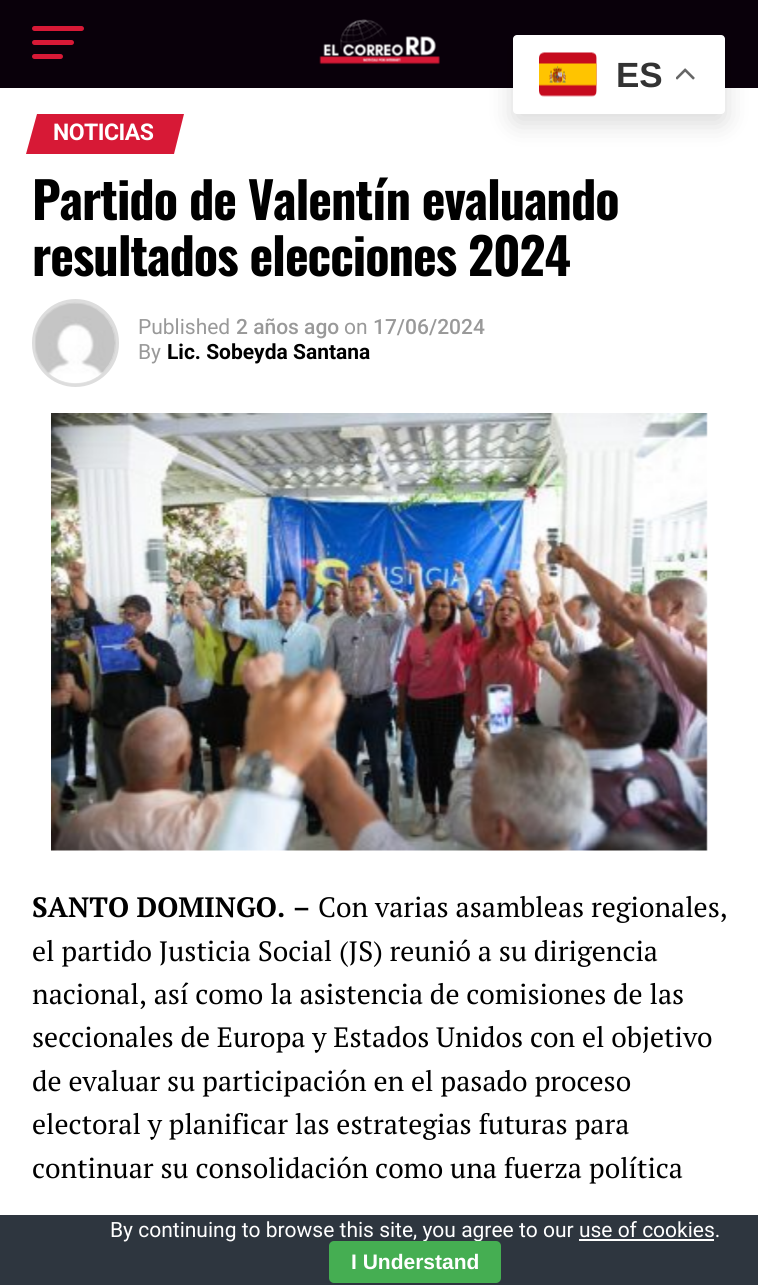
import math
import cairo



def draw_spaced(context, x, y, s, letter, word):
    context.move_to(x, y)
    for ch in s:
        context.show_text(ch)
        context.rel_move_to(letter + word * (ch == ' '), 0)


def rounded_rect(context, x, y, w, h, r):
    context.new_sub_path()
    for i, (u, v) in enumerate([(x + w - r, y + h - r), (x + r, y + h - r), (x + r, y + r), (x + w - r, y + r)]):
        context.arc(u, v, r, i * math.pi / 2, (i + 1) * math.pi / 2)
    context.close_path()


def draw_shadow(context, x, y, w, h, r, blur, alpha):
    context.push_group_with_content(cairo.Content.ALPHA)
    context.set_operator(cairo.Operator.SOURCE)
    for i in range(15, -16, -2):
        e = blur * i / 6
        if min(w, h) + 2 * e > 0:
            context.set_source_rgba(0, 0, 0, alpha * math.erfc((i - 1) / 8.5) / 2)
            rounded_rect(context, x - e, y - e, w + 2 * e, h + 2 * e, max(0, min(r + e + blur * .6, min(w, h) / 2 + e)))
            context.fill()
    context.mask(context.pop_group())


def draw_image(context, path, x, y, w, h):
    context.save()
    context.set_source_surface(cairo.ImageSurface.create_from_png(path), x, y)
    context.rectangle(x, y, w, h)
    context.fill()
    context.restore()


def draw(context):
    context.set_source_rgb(1, 1, 1)
    context.paint()
    context.set_source_rgb(9 / 255, 0, 10 / 255)
    context.rectangle(0, 0, 758, 88)
    context.fill()
    context.set_source_rgb(0, 0, 0)
    draw_shadow(context, 513, 44, 212, 79, 4, 13, 0.15)
    context.set_source_rgb(1, 1, 1)
    rounded_rect(context, 513, 35, 212, 79, 4)
    context.fill()
    draw_image(context, "images/1.png", 539, 52, 58, 45)
    draw_image(context, "images/2.png", 676, 68, 19, 12)
    context.set_source_rgb(215 / 255, 25 / 255, 54 / 255)
    rounded_rect(context, 32, 26, 52, 5, 2.5)
    context.fill()
    rounded_rect(context, 32, 40, 42, 5, 2.5)
    context.fill()
    rounded_rect(context, 32, 54, 31, 5, 2.5)
    context.fill()
    draw_image(context, "images/3.png", 319, 19, 121, 46)
    context.new_path()
    context.move_to(37, 114)
    context.line_to(184, 114)
    context.line_to(174, 154)
    context.line_to(26, 154)
    context.close_path()
    context.fill()
    rounded_rect(context, 34, 301, 83, 84, 41.5)
    context.set_source_rgb(221 / 255, 221 / 255, 221 / 255)
    context.set_line_width(4)
    context.stroke()
    draw_image(context, "images/4.png", 35, 302, 81, 82)
    draw_image(context, "images/5.png", 51, 413, 657, 438)
    context.set_source_rgb(46 / 255, 54 / 255, 63 / 255)
    context.rectangle(0, 1215, 758, 70)
    context.fill()
    context.set_source_rgb(1, 1, 1)
    context.rectangle(579, 1239, 135, 2)
    context.fill()
    context.select_font_face("Liberation Sans", cairo.FontSlant.NORMAL, cairo.FontWeight.BOLD)
    context.set_font_size(35)
    context.set_source_rgb(51 / 255, 51 / 255, 51 / 255)
    context.move_to(616, 87)
    context.show_text("ES")
    context.select_font_face("Roboto", cairo.FontSlant.NORMAL, cairo.FontWeight.BOLD)
    context.set_font_size(23)
    context.set_source_rgb(1, 1, 1)
    draw_spaced(context, 53, 140, "NOTICIAS", -0.5, 0)
    context.select_font_face("Oswald", cairo.FontSlant.NORMAL, cairo.FontWeight.BOLD)
    context.set_font_size(50.4)
    context.set_source_rgb(0, 0, 0)
    draw_spaced(context, 32, 220, "Partido de Valentín evaluando", -1, 0)
    draw_spaced(context, 32, 276, "resultados elecciones 2024", -1, 0)
    context.select_font_face("Roboto")
    context.set_font_size(21)
    context.set_source_rgb(153 / 255, 153 / 255, 153 / 255)
    context.move_to(138, 334)
    context.show_text("Published")
    context.select_font_face("Roboto Medium")
    context.move_to(236, 334)
    context.show_text("2 años ago")
    context.select_font_face("Roboto")
    context.move_to(344, 334)
    context.show_text("on")
    context.select_font_face("Roboto Medium")
    context.move_to(373, 334)
    context.show_text("17/06/2024")
    context.select_font_face("Roboto")
    context.move_to(138, 359)
    context.show_text("By")
    context.select_font_face("Roboto", cairo.FontSlant.NORMAL, cairo.FontWeight.BOLD)
    context.set_source_rgb(0, 0, 0)
    context.move_to(167, 359)
    context.show_text("Lic. Sobeyda Santana")
    context.select_font_face("PT Serif", cairo.FontSlant.NORMAL, cairo.FontWeight.BOLD)
    context.set_font_size(28)
    context.move_to(32, 917)
    context.show_text("SANTO DOMINGO. –")
    context.select_font_face("PT Serif")
    context.move_to(318, 917)
    context.show_text("Con varias asambleas regionales,")
    context.move_to(32, 961)
    context.show_text("el partido Justicia Social (JS) reunió a su dirigencia")
    context.move_to(32, 1004)
    context.show_text("nacional, así como la asistencia de comisiones de las")
    context.move_to(32, 1047)
    context.show_text("seccionales de Europa y Estados Unidos con el objetivo")
    context.move_to(32, 1091)
    context.show_text("de evaluar su participación en el pasado proceso")
    context.move_to(32, 1134)
    context.show_text("electoral y planificar las estrategias futuras para")
    context.move_to(32, 1178)
    context.show_text("continuar su consolidación como una fuerza política")
    context.select_font_face("Roboto")
    context.set_font_size(21)
    context.set_source_rgb(1, 1, 1)
    context.move_to(110, 1237)
    context.show_text("By continuing to browse this site, you agree to our use of cookies.")
    context.set_source_rgb(69 / 255, 174 / 255, 82 / 255)
    rounded_rect(context, 329, 1241, 172, 42, 5)
    context.fill()
    context.select_font_face("Liberation Sans", cairo.FontSlant.NORMAL, cairo.FontWeight.BOLD)
    context.set_source_rgb(1, 1, 1)
    context.move_to(351, 1269)
    context.show_text("I Understand")


surface = cairo.ImageSurface(cairo.Format.RGB24, 758, 1285)
context = cairo.Context(surface)
options = cairo.FontOptions()
options.set_hint_metrics(cairo.HintMetrics.OFF)
options.set_hint_style(cairo.HintStyle.NONE)
context.set_font_options(options)
context.set_miter_limit(4)
draw(context)
surface.write_to_png("out.png")
